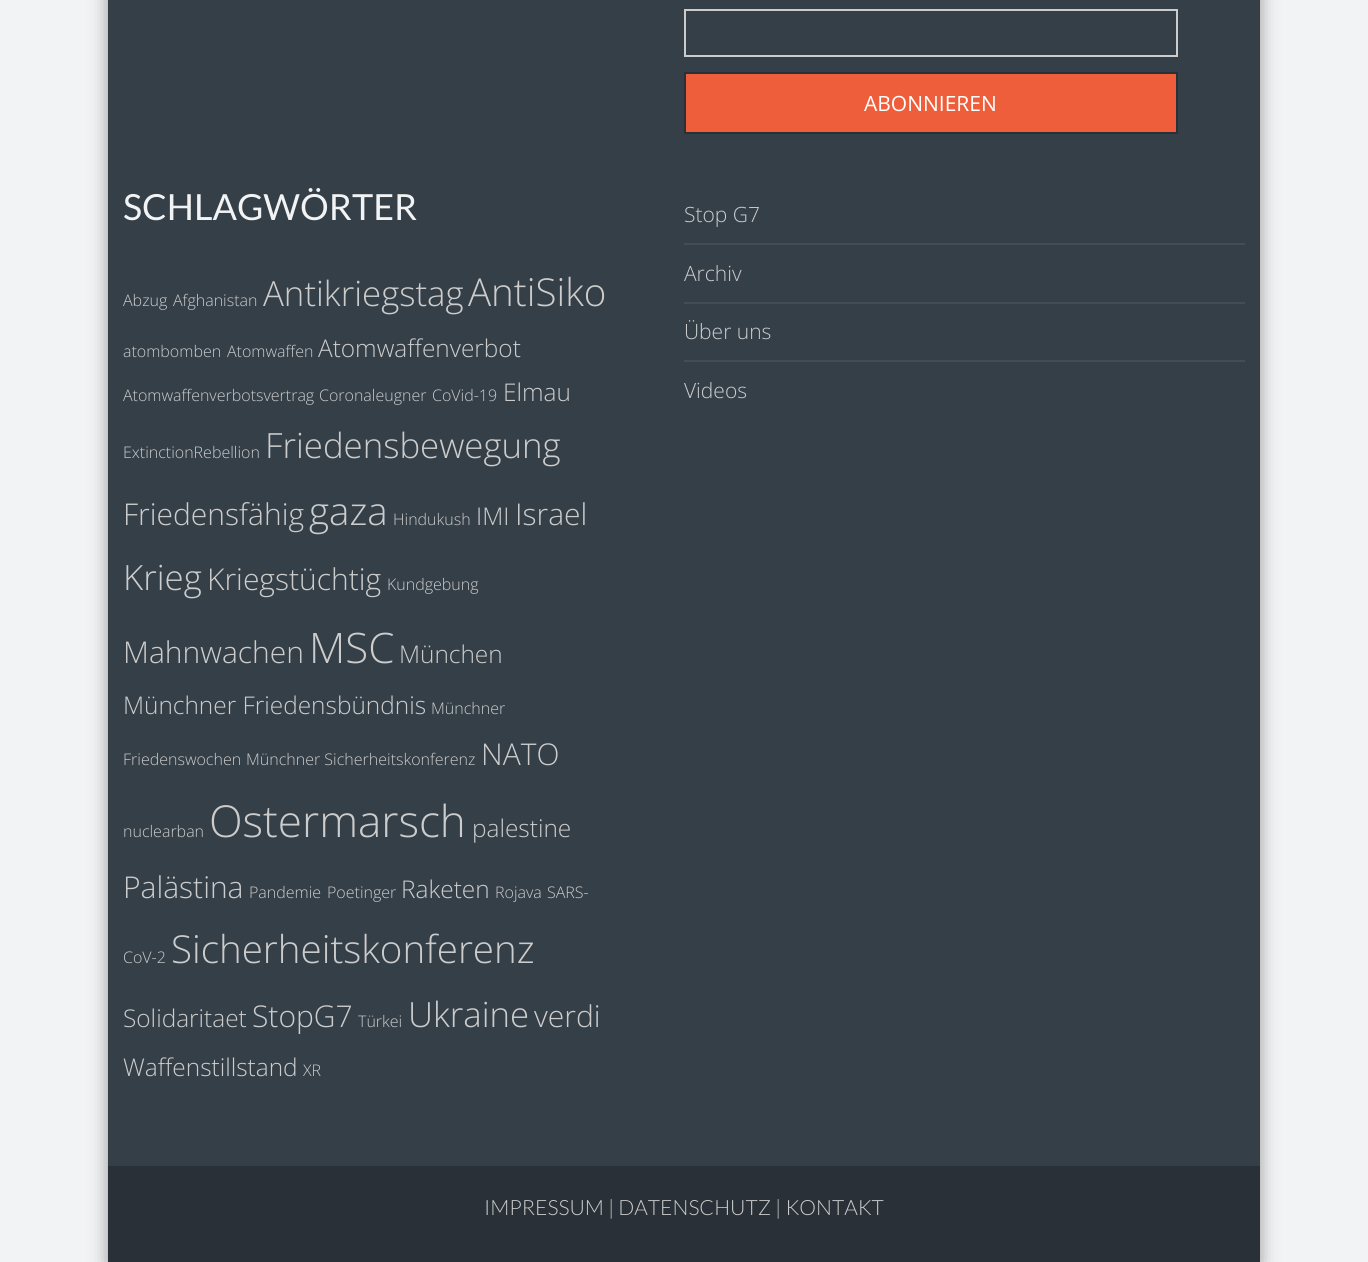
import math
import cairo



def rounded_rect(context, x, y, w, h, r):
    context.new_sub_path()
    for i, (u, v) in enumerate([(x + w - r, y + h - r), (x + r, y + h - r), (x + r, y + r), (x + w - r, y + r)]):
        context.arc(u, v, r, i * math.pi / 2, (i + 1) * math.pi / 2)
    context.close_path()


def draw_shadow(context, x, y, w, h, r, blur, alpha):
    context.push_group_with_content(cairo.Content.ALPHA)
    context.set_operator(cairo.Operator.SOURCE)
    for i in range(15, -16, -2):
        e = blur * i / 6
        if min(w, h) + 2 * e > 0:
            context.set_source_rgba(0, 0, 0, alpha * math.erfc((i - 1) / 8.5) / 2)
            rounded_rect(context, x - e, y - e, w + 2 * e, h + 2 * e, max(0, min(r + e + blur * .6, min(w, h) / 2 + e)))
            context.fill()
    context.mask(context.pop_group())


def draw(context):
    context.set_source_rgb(242 / 255, 243 / 255, 244 / 255)
    context.paint()
    context.set_source_rgb(153 / 255, 153 / 255, 153 / 255)
    draw_shadow(context, 108, -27, 1152, 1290, 0, 9, 1)
    context.set_source_rgb(53 / 255, 63 / 255, 71 / 255)
    context.rectangle(108, 0, 1152, 1166)
    context.fill()
    context.rectangle(685, 10, 492, 46)
    context.set_source_rgb(204 / 255, 204 / 255, 204 / 255)
    context.stroke()
    context.set_source_rgb(238 / 255, 94 / 255, 59 / 255)
    context.rectangle(685, 73, 492, 60)
    context.fill_preserve()
    context.set_source_rgb(41 / 255, 48 / 255, 55 / 255)
    context.stroke()
    context.set_source_rgb(69 / 255, 77 / 255, 84 / 255)
    context.rectangle(684, 243, 561, 2)
    context.fill()
    context.rectangle(684, 302, 561, 2)
    context.fill()
    context.rectangle(684, 360, 561, 2)
    context.fill()
    context.set_source_rgb(41 / 255, 48 / 255, 55 / 255)
    context.rectangle(108, 1166, 1152, 96)
    context.fill()
    context.select_font_face("Open Sans")
    context.set_font_size(21)
    context.set_source_rgb(1, 1, 1)
    context.move_to(864, 111)
    context.show_text("ABONNIEREN")
    context.select_font_face("Lato")
    context.set_font_size(36)
    context.set_source_rgb(242 / 255, 243 / 255, 244 / 255)
    context.move_to(123, 220)
    context.show_text("SCHLAGWÖRTER")
    context.select_font_face("Open Sans Light")
    context.set_font_size(16)
    context.set_source_rgb(204 / 255, 204 / 255, 204 / 255)
    context.move_to(123, 306)
    context.show_text("Abzug")
    context.move_to(173, 306)
    context.show_text("Afghanistan")
    context.set_font_size(34.75)
    context.move_to(263, 306)
    context.show_text("Antikriegstag")
    context.set_font_size(38.5)
    context.move_to(468, 306)
    context.show_text("AntiSiko")
    context.set_font_size(16)
    context.move_to(123, 357)
    context.show_text("atombomben")
    context.move_to(227, 357)
    context.show_text("Atomwaffen")
    context.set_font_size(24.4)
    context.move_to(318, 357)
    context.show_text("Atomwaffenverbot")
    context.set_font_size(16)
    context.move_to(123, 401)
    context.show_text("Atomwaffenverbotsvertrag")
    context.move_to(319, 401)
    context.show_text("Coronaleugner")
    context.move_to(432, 401)
    context.show_text("CoVid-19")
    context.set_font_size(24.4)
    context.move_to(503, 401)
    context.show_text("Elmau")
    context.set_font_size(16)
    context.move_to(123, 458)
    context.show_text("ExtinctionRebellion")
    context.set_font_size(34.75)
    context.move_to(265, 458)
    context.show_text("Friedensbewegung")
    context.set_font_size(30)
    context.move_to(123, 525)
    context.show_text("Friedensfähig")
    context.set_font_size(38.5)
    context.move_to(309, 525)
    context.show_text("gaza")
    context.set_font_size(16)
    context.move_to(393, 525)
    context.show_text("Hindukush")
    context.set_font_size(24.4)
    context.move_to(476, 525)
    context.show_text("IMI")
    context.set_font_size(30)
    context.move_to(515, 525)
    context.show_text("Israel")
    context.set_font_size(34.75)
    context.move_to(123, 590)
    context.show_text("Krieg")
    context.set_font_size(30)
    context.move_to(207, 590)
    context.show_text("Kriegstüchtig")
    context.set_font_size(16)
    context.move_to(387, 590)
    context.show_text("Kundgebung")
    context.set_font_size(30)
    context.move_to(123, 663)
    context.show_text("Mahnwachen")
    context.set_font_size(42)
    context.move_to(309, 663)
    context.show_text("MSC")
    context.set_font_size(24.4)
    context.move_to(399, 663)
    context.show_text("München")
    context.move_to(123, 714)
    context.show_text("Münchner Friedensbündnis")
    context.set_font_size(16)
    context.move_to(431, 714)
    context.show_text("Münchner")
    context.move_to(123, 765)
    context.show_text("Friedenswochen")
    context.move_to(246, 765)
    context.show_text("Münchner Sicherheitskonferenz")
    context.set_font_size(30)
    context.move_to(481, 765)
    context.show_text("NATO")
    context.set_font_size(16)
    context.move_to(123, 837)
    context.show_text("nuclearban")
    context.set_font_size(44)
    context.move_to(209, 837)
    context.show_text("Ostermarsch")
    context.set_font_size(24.4)
    context.move_to(472, 837)
    context.show_text("palestine")
    context.set_font_size(30)
    context.move_to(123, 898)
    context.show_text("Palästina")
    context.set_font_size(16)
    context.move_to(249, 898)
    context.show_text("Pandemie")
    context.move_to(327, 898)
    context.show_text("Poetinger")
    context.set_font_size(24.4)
    context.move_to(401, 898)
    context.show_text("Raketen")
    context.set_font_size(16)
    context.move_to(495, 898)
    context.show_text("Rojava")
    context.move_to(547, 898)
    context.show_text("SARS-")
    context.move_to(123, 963)
    context.show_text("CoV-2")
    context.set_font_size(38.5)
    context.move_to(171, 963)
    context.show_text("Sicherheitskonferenz")
    context.set_font_size(24.4)
    context.move_to(123, 1027)
    context.show_text("Solidaritaet")
    context.set_font_size(30)
    context.move_to(252, 1027)
    context.show_text("StopG7")
    context.set_font_size(16)
    context.move_to(358, 1027)
    context.show_text("Türkei")
    context.set_font_size(34.75)
    context.move_to(408, 1027)
    context.show_text("Ukraine")
    context.set_font_size(30)
    context.move_to(534, 1027)
    context.show_text("verdi")
    context.set_font_size(24.4)
    context.move_to(123, 1076)
    context.show_text("Waffenstillstand")
    context.set_font_size(16)
    context.move_to(303, 1076)
    context.show_text("XR")
    context.set_font_size(21)
    context.move_to(684, 222)
    context.show_text("Stop G7")
    context.move_to(684, 281)
    context.show_text("Archiv")
    context.move_to(684, 339)
    context.show_text("Über uns")
    context.move_to(684, 398)
    context.show_text("Videos")
    context.select_font_face("Lato Light")
    context.move_to(484, 1215)
    context.show_text("IMPRESSUM | DATENSCHUTZ | KONTAKT")


surface = cairo.ImageSurface(cairo.Format.RGB24, 1368, 1262)
context = cairo.Context(surface)
options = cairo.FontOptions()
options.set_hint_metrics(cairo.HintMetrics.OFF)
options.set_hint_style(cairo.HintStyle.NONE)
context.set_font_options(options)
context.set_miter_limit(4)
draw(context)
surface.write_to_png("out.png")
